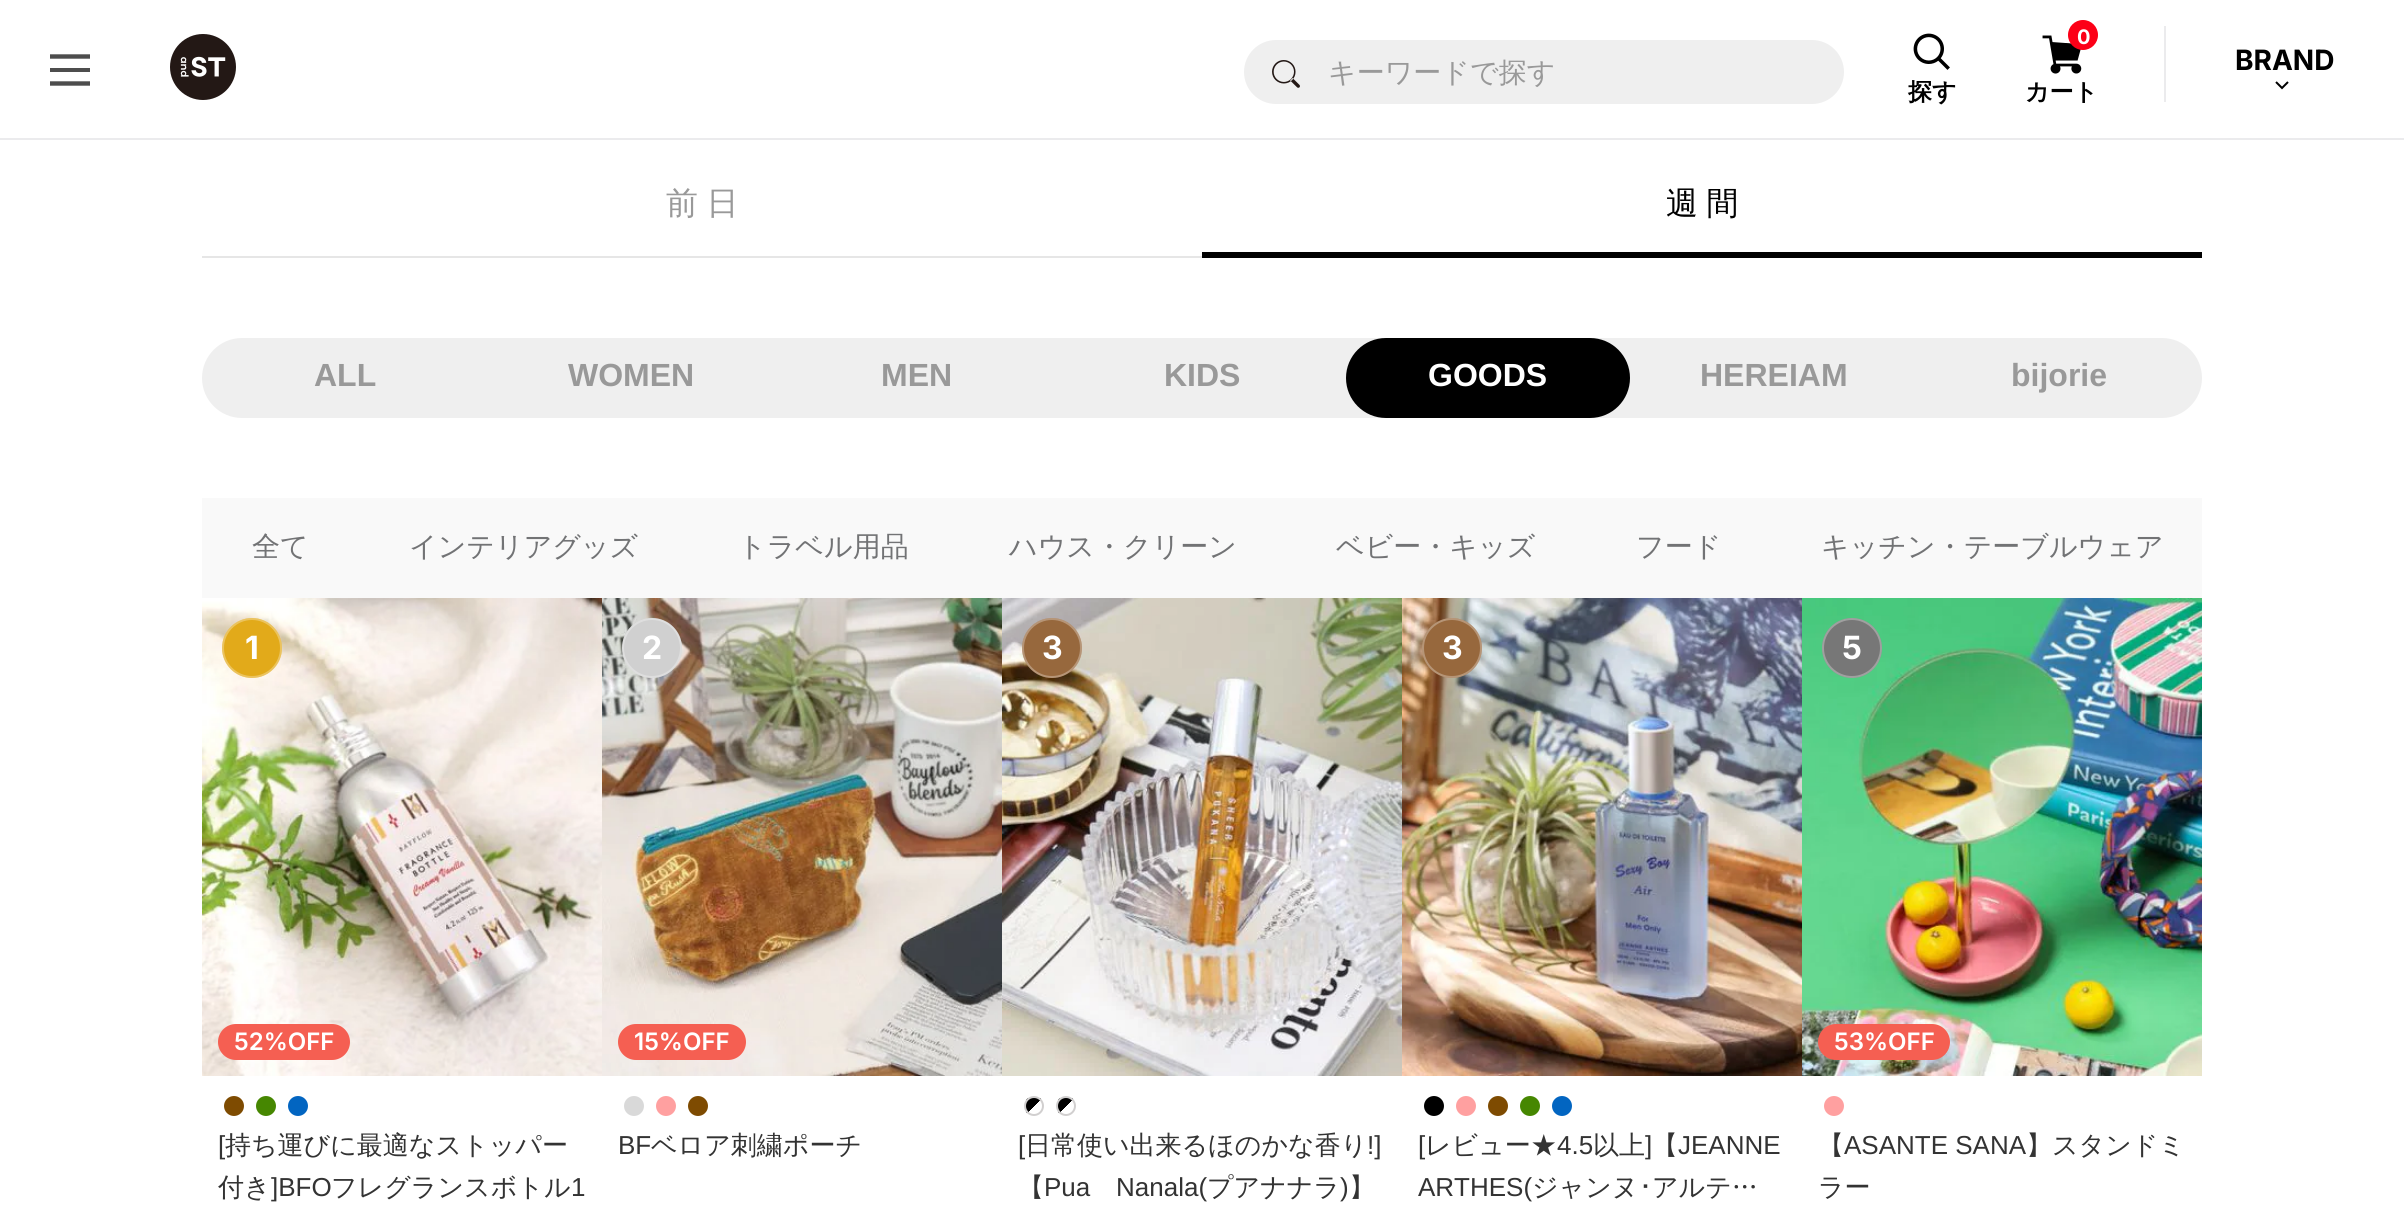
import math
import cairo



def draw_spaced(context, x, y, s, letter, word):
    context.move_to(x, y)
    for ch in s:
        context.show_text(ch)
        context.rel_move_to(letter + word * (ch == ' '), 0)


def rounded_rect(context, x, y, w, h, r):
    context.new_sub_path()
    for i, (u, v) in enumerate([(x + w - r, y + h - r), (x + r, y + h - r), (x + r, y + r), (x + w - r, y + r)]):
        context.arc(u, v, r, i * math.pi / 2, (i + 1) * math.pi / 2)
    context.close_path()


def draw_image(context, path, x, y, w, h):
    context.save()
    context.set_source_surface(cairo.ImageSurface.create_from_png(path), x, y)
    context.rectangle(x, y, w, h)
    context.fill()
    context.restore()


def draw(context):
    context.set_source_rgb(1, 1, 1)
    context.paint()
    context.set_source_rgb(239 / 255, 239 / 255, 239 / 255)
    rounded_rect(context, 1244, 40, 600, 64, 32)
    context.fill()
    draw_image(context, "images/1.png", 1272, 60, 28, 28)
    context.set_source_rgb(235 / 255, 235 / 255, 237 / 255)
    context.rectangle(0, 138, 2404, 2)
    context.fill()
    context.new_path()
    context.move_to(50, 56.5)
    context.line_to(90, 56.5)
    context.set_source_rgb(77 / 255, 77 / 255, 77 / 255)
    context.set_line_width(4.4)
    context.stroke()
    context.rectangle(50, 68, 40, 4)
    context.fill()
    context.new_path()
    context.move_to(50, 83.5)
    context.line_to(90, 83.5)
    context.stroke()
    draw_image(context, "images/2.png", 170, 34, 66, 66)
    draw_image(context, "images/3.png", 2042, 35, 40, 39)
    context.set_source_rgb(252 / 255, 0, 23 / 255)
    context.arc(2083, 35, 15, 0, 2 * math.pi)
    context.fill()
    context.set_source_rgb(235 / 255, 235 / 255, 237 / 255)
    context.rectangle(2164, 26, 2, 76)
    context.fill()
    context.new_path()
    context.move_to(2276, 82)
    context.line_to(2282, 88)
    context.line_to(2288, 82)
    context.set_source_rgb(0, 0, 0)
    context.set_line_width(2)
    context.stroke()
    draw_image(context, "images/4.png", 1913, 33, 37, 37)
    context.rectangle(1202, 252, 1000, 6)
    context.fill()
    context.set_source_rgb(230 / 255, 230 / 255, 230 / 255)
    context.rectangle(202, 256, 1000, 2)
    context.fill()
    context.set_source_rgb(239 / 255, 239 / 255, 239 / 255)
    rounded_rect(context, 202, 338, 2000, 80, 40)
    context.fill()
    context.set_source_rgb(0, 0, 0)
    rounded_rect(context, 1346, 338, 284, 80, 40)
    context.fill()
    context.set_source_rgb(249 / 255, 249 / 255, 249 / 255)
    context.rectangle(202, 498, 2000, 100)
    context.fill()
    draw_image(context, "images/5.png", 202, 598, 400, 478)
    context.set_source_rgb(226 / 255, 170 / 255, 26 / 255)
    context.arc(252, 648, 30, 0, 2 * math.pi)
    context.fill()
    context.arc(252, 648, 29, 0, 2 * math.pi)
    context.set_source_rgba(1, 1, 1, 0.3)
    context.stroke()
    context.set_source_rgb(245 / 255, 95 / 255, 82 / 255)
    rounded_rect(context, 218, 1024, 132, 36, 18)
    context.fill()
    context.set_source_rgb(126 / 255, 75 / 255, 1 / 255)
    context.arc(234, 1106, 10, 0, 2 * math.pi)
    context.fill()
    context.set_source_rgb(70 / 255, 135 / 255, 1 / 255)
    context.arc(266, 1106, 10, 0, 2 * math.pi)
    context.fill()
    context.set_source_rgb(2 / 255, 101 / 255, 193 / 255)
    context.arc(298, 1106, 10, 0, 2 * math.pi)
    context.fill()
    draw_image(context, "images/6.png", 602, 598, 400, 478)
    context.set_source_rgb(208 / 255, 208 / 255, 208 / 255)
    context.arc(652, 648, 30, 0, 2 * math.pi)
    context.fill()
    context.arc(652, 648, 29, 0, 2 * math.pi)
    context.set_source_rgba(1, 1, 1, 0.3)
    context.stroke()
    context.set_source_rgb(245 / 255, 95 / 255, 82 / 255)
    rounded_rect(context, 618, 1024, 128, 36, 18)
    context.fill()
    context.set_source_rgb(217 / 255, 217 / 255, 217 / 255)
    context.arc(634, 1106, 10, 0, 2 * math.pi)
    context.fill()
    context.set_source_rgb(1, 160 / 255, 160 / 255)
    context.arc(666, 1106, 10, 0, 2 * math.pi)
    context.fill()
    context.set_source_rgb(126 / 255, 75 / 255, 1 / 255)
    context.arc(698, 1106, 10, 0, 2 * math.pi)
    context.fill()
    draw_image(context, "images/7.png", 1002, 598, 400, 478)
    context.set_source_rgb(151 / 255, 104 / 255, 61 / 255)
    context.arc(1052, 648, 30, 0, 2 * math.pi)
    context.fill()
    context.arc(1052, 648, 29, 0, 2 * math.pi)
    context.set_source_rgba(1, 1, 1, 0.3)
    context.stroke()
    context.save()
    rounded_rect(context, 1024, 1096, 20, 20, 10)
    context.clip()
    gradient = cairo.LinearGradient(1026, 1098, 1042, 1114)
    gradient.add_color_stop_rgba(0.5, 0, 0, 0, 1)
    gradient.add_color_stop_rgba(0.51, 1, 1, 1, 1)
    context.set_source(gradient)
    context.rectangle(1026, 1098, 16, 16)
    context.fill()
    context.restore()
    context.arc(1034, 1106, 9, 0, 2 * math.pi)
    context.set_source_rgb(209 / 255, 207 / 255, 207 / 255)
    context.stroke()
    context.save()
    rounded_rect(context, 1056, 1096, 20, 20, 10)
    context.clip()
    gradient = cairo.LinearGradient(1058, 1098, 1074, 1114)
    gradient.add_color_stop_rgba(0.5, 0, 0, 0, 1)
    gradient.add_color_stop_rgba(0.51, 1, 1, 1, 1)
    context.set_source(gradient)
    context.rectangle(1058, 1098, 16, 16)
    context.fill()
    context.restore()
    context.arc(1066, 1106, 9, 0, 2 * math.pi)
    context.stroke()
    draw_image(context, "images/8.png", 1402, 598, 400, 478)
    context.set_source_rgb(151 / 255, 104 / 255, 61 / 255)
    context.arc(1452, 648, 30, 0, 2 * math.pi)
    context.fill()
    context.arc(1452, 648, 29, 0, 2 * math.pi)
    context.set_source_rgba(1, 1, 1, 0.3)
    context.stroke()
    context.set_source_rgb(0, 0, 0)
    context.arc(1434, 1106, 10, 0, 2 * math.pi)
    context.fill()
    context.set_source_rgb(1, 160 / 255, 160 / 255)
    context.arc(1466, 1106, 10, 0, 2 * math.pi)
    context.fill()
    context.set_source_rgb(126 / 255, 75 / 255, 1 / 255)
    context.arc(1498, 1106, 10, 0, 2 * math.pi)
    context.fill()
    context.set_source_rgb(70 / 255, 135 / 255, 1 / 255)
    context.arc(1530, 1106, 10, 0, 2 * math.pi)
    context.fill()
    context.set_source_rgb(2 / 255, 101 / 255, 193 / 255)
    context.arc(1562, 1106, 10, 0, 2 * math.pi)
    context.fill()
    draw_image(context, "images/9.png", 1802, 598, 400, 478)
    context.set_source_rgb(119 / 255, 119 / 255, 119 / 255)
    context.arc(1852, 648, 30, 0, 2 * math.pi)
    context.fill()
    context.arc(1852, 648, 29, 0, 2 * math.pi)
    context.set_source_rgba(1, 1, 1, 0.3)
    context.stroke()
    context.set_source_rgb(245 / 255, 95 / 255, 82 / 255)
    rounded_rect(context, 1818, 1024, 132, 36, 18)
    context.fill()
    context.set_source_rgb(1, 160 / 255, 160 / 255)
    context.arc(1834, 1106, 10, 0, 2 * math.pi)
    context.fill()
    context.select_font_face("WenQuanYi Zen Hei Medium")
    context.set_font_size(28)
    context.set_source_rgb(153 / 255, 153 / 255, 153 / 255)
    context.move_to(1328, 82)
    context.show_text("キーワードで探す")
    context.select_font_face("Inter", cairo.FontSlant.NORMAL, cairo.FontWeight.BOLD)
    context.set_font_size(20)
    context.set_source_rgb(1, 1, 1)
    draw_spaced(context, 2077, 44, "0", -2, 0)
    context.select_font_face("WenQuanYi Zen Hei", cairo.FontSlant.NORMAL, cairo.FontWeight.BOLD)
    context.set_font_size(24)
    context.set_source_rgb(0, 0, 0)
    context.move_to(2025, 100)
    context.show_text("カート")
    context.select_font_face("Inter", cairo.FontSlant.NORMAL, cairo.FontWeight.BOLD)
    context.set_font_size(28)
    context.move_to(2235, 70)
    context.show_text("BRAND")
    context.select_font_face("WenQuanYi Zen Hei", cairo.FontSlant.NORMAL, cairo.FontWeight.BOLD)
    context.set_font_size(24)
    context.move_to(1908, 100)
    context.show_text("探す")
    context.select_font_face("WenQuanYi Zen Hei Medium")
    context.set_font_size(32)
    context.set_source_rgb(153 / 255, 153 / 255, 153 / 255)
    draw_spaced(context, 666, 214, "前 日", 0, -1)
    context.set_source_rgb(0, 0, 0)
    draw_spaced(context, 1666, 214, "週 間", 0, -1)
    context.select_font_face("Liberation Sans", cairo.FontSlant.NORMAL, cairo.FontWeight.BOLD)
    context.set_source_rgb(153 / 255, 153 / 255, 153 / 255)
    context.move_to(314, 386)
    context.show_text("ALL")
    context.move_to(568, 386)
    context.show_text("WOMEN")
    context.move_to(881, 386)
    context.show_text("MEN")
    context.move_to(1164, 386)
    context.show_text("KIDS")
    context.set_source_rgb(1, 1, 1)
    context.move_to(1428, 386)
    context.show_text("GOODS")
    context.set_source_rgb(153 / 255, 153 / 255, 153 / 255)
    context.move_to(1700, 386)
    context.show_text("HEREIAM")
    context.move_to(2011, 386)
    context.show_text("bijorie")
    context.select_font_face("WenQuanYi Zen Hei Medium")
    context.set_font_size(28)
    context.set_source_rgb(114 / 255, 115 / 255, 117 / 255)
    context.move_to(252, 556)
    context.show_text("全て")
    context.move_to(409, 556)
    context.show_text("インテリアグッズ")
    context.move_to(738, 556)
    context.show_text("トラベル用品")
    context.move_to(1009, 556)
    context.show_text("ハウス・クリーン")
    context.move_to(1336, 556)
    context.show_text("ベビー・キッズ")
    context.move_to(1636, 556)
    context.show_text("フード")
    context.move_to(1821, 556)
    context.show_text("キッチン・テーブルウェア")
    context.select_font_face("Inter", cairo.FontSlant.NORMAL, cairo.FontWeight.BOLD)
    context.set_font_size(32)
    context.set_source_rgb(1, 1, 1)
    context.move_to(245, 659)
    context.show_text("1")
    context.select_font_face("Inter SemiBold")
    context.set_font_size(24)
    context.move_to(234, 1050)
    context.show_text("52%OFF")
    context.select_font_face("Liberation Sans")
    context.set_font_size(26)
    context.set_source_rgb(51 / 255, 51 / 255, 51 / 255)
    context.move_to(218, 1154)
    context.show_text("[")
    context.select_font_face("WenQuanYi Zen Hei Medium")
    context.move_to(225, 1154)
    context.show_text("持ち運びに最適なストッパー")
    context.move_to(218, 1196)
    context.show_text("付き")
    context.select_font_face("Liberation Sans")
    context.move_to(271, 1196)
    context.show_text("]BFO")
    context.select_font_face("WenQuanYi Zen Hei Medium")
    context.move_to(331, 1196)
    context.show_text("フレグランスボトル")
    context.select_font_face("Liberation Sans")
    context.move_to(571, 1196)
    context.show_text("1")
    context.select_font_face("Inter", cairo.FontSlant.NORMAL, cairo.FontWeight.BOLD)
    context.set_font_size(32)
    context.set_source_rgb(1, 1, 1)
    context.move_to(642, 659)
    context.show_text("2")
    context.select_font_face("Inter SemiBold")
    context.set_font_size(24)
    context.move_to(634, 1050)
    context.show_text("15%OFF")
    context.select_font_face("Liberation Sans")
    context.set_font_size(26)
    context.set_source_rgb(51 / 255, 51 / 255, 51 / 255)
    context.move_to(618, 1154)
    context.show_text("BF")
    context.select_font_face("WenQuanYi Zen Hei Medium")
    context.move_to(651, 1154)
    context.show_text("ベロア刺繍ポーチ")
    context.select_font_face("Inter", cairo.FontSlant.NORMAL, cairo.FontWeight.BOLD)
    context.set_font_size(32)
    context.set_source_rgb(1, 1, 1)
    context.move_to(1042, 659)
    context.show_text("3")
    context.select_font_face("Liberation Sans")
    context.set_font_size(26)
    context.set_source_rgb(51 / 255, 51 / 255, 51 / 255)
    context.move_to(1018, 1154)
    context.show_text("[")
    context.select_font_face("WenQuanYi Zen Hei Medium")
    context.move_to(1025, 1154)
    context.show_text("日常使い出来るほのかな香り")
    context.select_font_face("Liberation Sans")
    context.move_to(1367, 1154)
    context.show_text("!]")
    context.select_font_face("WenQuanYi Zen Hei Medium")
    context.move_to(1018, 1196)
    context.show_text("【")
    context.select_font_face("Liberation Sans")
    context.move_to(1044, 1196)
    context.show_text("Pua")
    context.move_to(1116, 1196)
    context.show_text("Nanala(")
    context.select_font_face("WenQuanYi Zen Hei Medium")
    context.move_to(1207, 1196)
    context.show_text("プアナナラ")
    context.select_font_face("Liberation Sans")
    context.move_to(1340, 1196)
    context.show_text(")")
    context.select_font_face("WenQuanYi Zen Hei Medium")
    context.move_to(1349, 1196)
    context.show_text("】")
    context.select_font_face("Inter", cairo.FontSlant.NORMAL, cairo.FontWeight.BOLD)
    context.set_font_size(32)
    context.set_source_rgb(1, 1, 1)
    context.move_to(1442, 659)
    context.show_text("3")
    context.select_font_face("Liberation Sans")
    context.set_font_size(26)
    context.set_source_rgb(51 / 255, 51 / 255, 51 / 255)
    context.move_to(1418, 1154)
    context.show_text("[")
    context.select_font_face("WenQuanYi Zen Hei Medium")
    context.move_to(1425, 1154)
    context.show_text("レビュー★")
    context.select_font_face("Liberation Sans")
    context.move_to(1557, 1154)
    context.show_text("4.5")
    context.select_font_face("WenQuanYi Zen Hei Medium")
    context.move_to(1593, 1154)
    context.show_text("以上")
    context.select_font_face("Liberation Sans")
    context.move_to(1645, 1154)
    context.show_text("]")
    context.select_font_face("WenQuanYi Zen Hei Medium")
    context.move_to(1652, 1154)
    context.show_text("【")
    context.select_font_face("Liberation Sans")
    context.move_to(1678, 1154)
    context.show_text("JEANNE")
    context.move_to(1418, 1196)
    context.show_text("ARTHES(")
    context.select_font_face("WenQuanYi Zen Hei Medium")
    context.move_to(1532, 1196)
    context.show_text("ジャンヌ")
    context.select_font_face("IPAPGothic")
    context.move_to(1639, 1196)
    context.show_text("･")
    context.select_font_face("WenQuanYi Zen Hei Medium")
    context.move_to(1652, 1196)
    context.show_text("アルテ…")
    context.select_font_face("Inter", cairo.FontSlant.NORMAL, cairo.FontWeight.BOLD)
    context.set_font_size(32)
    context.set_source_rgb(1, 1, 1)
    context.move_to(1842, 659)
    context.show_text("5")
    context.select_font_face("Inter SemiBold")
    context.set_font_size(24)
    context.move_to(1834, 1050)
    context.show_text("53%OFF")
    context.select_font_face("WenQuanYi Zen Hei Medium")
    context.set_font_size(26)
    context.set_source_rgb(51 / 255, 51 / 255, 51 / 255)
    context.move_to(1818, 1154)
    context.show_text("【")
    context.select_font_face("Liberation Sans")
    context.move_to(1844, 1154)
    context.show_text("ASANTE SANA")
    context.select_font_face("WenQuanYi Zen Hei Medium")
    context.move_to(2026, 1154)
    context.show_text("】スタンドミ")
    context.move_to(1818, 1196)
    context.show_text("ラー")


surface = cairo.ImageSurface(cairo.Format.RGB24, 2404, 1214)
context = cairo.Context(surface)
options = cairo.FontOptions()
options.set_hint_metrics(cairo.HintMetrics.OFF)
options.set_hint_style(cairo.HintStyle.NONE)
context.set_font_options(options)
context.set_miter_limit(4)
draw(context)
surface.write_to_png("out.png")
